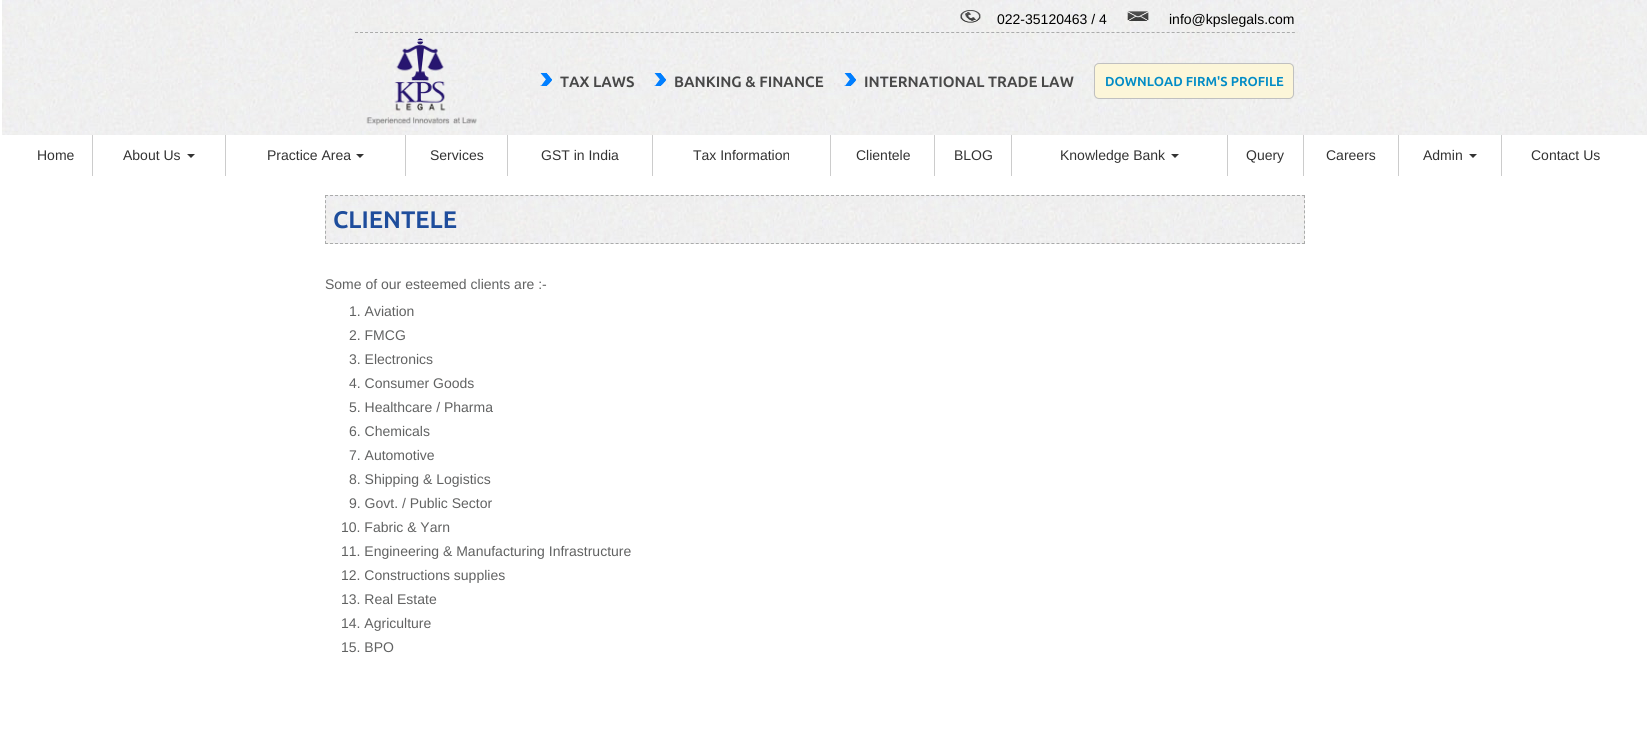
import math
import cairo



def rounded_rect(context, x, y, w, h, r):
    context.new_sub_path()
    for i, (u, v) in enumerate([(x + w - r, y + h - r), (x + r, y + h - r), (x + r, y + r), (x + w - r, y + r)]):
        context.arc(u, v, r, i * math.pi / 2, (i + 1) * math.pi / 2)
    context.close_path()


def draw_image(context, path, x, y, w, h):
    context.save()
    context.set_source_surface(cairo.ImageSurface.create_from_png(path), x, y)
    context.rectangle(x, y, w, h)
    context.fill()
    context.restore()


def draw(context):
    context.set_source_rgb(1, 1, 1)
    context.paint()
    draw_image(context, "images/1.png", 2, 0, 1645, 135)
    context.new_path()
    context.move_to(355, 32.5)
    context.line_to(1295, 32.5)
    context.set_source_rgb(170 / 255, 171 / 255, 171 / 255)
    context.set_line_width(1)
    context.set_dash([3, 2.01])
    context.stroke()
    draw_image(context, "images/2.png", 960, 10, 21, 13)
    draw_image(context, "images/3.png", 1127, 11, 22, 10)
    draw_image(context, "images/4.png", 366, 38, 111, 88)
    draw_image(context, "images/5.png", 540, 73, 12, 13)
    draw_image(context, "images/6.png", 654, 73, 12, 13)
    draw_image(context, "images/7.png", 844, 73, 12, 13)
    context.set_source_rgb(252 / 255, 246 / 255, 217 / 255)
    rounded_rect(context, 1094.5, 63.5, 199, 35, 4.5)
    context.fill_preserve()
    context.set_source_rgb(192 / 255, 192 / 255, 192 / 255)
    context.set_dash([])
    context.stroke()
    context.set_source_rgb(204 / 255, 204 / 255, 204 / 255)
    context.rectangle(92, 135, 1, 41)
    context.fill()
    context.rectangle(225, 135, 1, 41)
    context.fill()
    context.set_source_rgb(51 / 255, 51 / 255, 51 / 255)
    context.new_path()
    context.move_to(187, 154)
    context.line_to(195, 154)
    context.line_to(191, 158)
    context.close_path()
    context.fill()
    context.set_source_rgb(204 / 255, 204 / 255, 204 / 255)
    context.rectangle(405, 135, 1, 41)
    context.fill()
    context.set_source_rgb(51 / 255, 51 / 255, 51 / 255)
    context.new_path()
    context.move_to(356, 154)
    context.line_to(364, 154)
    context.line_to(360, 158)
    context.close_path()
    context.fill()
    context.set_source_rgb(204 / 255, 204 / 255, 204 / 255)
    context.rectangle(507, 135, 1, 41)
    context.fill()
    context.rectangle(652, 135, 1, 41)
    context.fill()
    context.rectangle(830, 135, 1, 41)
    context.fill()
    context.rectangle(934, 135, 1, 41)
    context.fill()
    context.rectangle(1011, 135, 1, 41)
    context.fill()
    context.rectangle(1227, 135, 1, 41)
    context.fill()
    context.set_source_rgb(51 / 255, 51 / 255, 51 / 255)
    context.new_path()
    context.move_to(1171, 154)
    context.line_to(1179, 154)
    context.line_to(1175, 158)
    context.close_path()
    context.fill()
    context.set_source_rgb(204 / 255, 204 / 255, 204 / 255)
    context.rectangle(1303, 135, 1, 41)
    context.fill()
    context.rectangle(1398, 135, 1, 41)
    context.fill()
    context.rectangle(1501, 135, 1, 41)
    context.fill()
    context.set_source_rgb(51 / 255, 51 / 255, 51 / 255)
    context.new_path()
    context.move_to(1469, 154)
    context.line_to(1477, 154)
    context.line_to(1473, 158)
    context.close_path()
    context.fill()
    draw_image(context, "images/8.png", 325, 195, 980, 49)
    context.new_path()
    context.move_to(325, 195.5)
    context.line_to(1305, 195.5)
    context.set_source_rgb(170 / 255, 171 / 255, 171 / 255)
    context.set_dash([3, 2.01])
    context.stroke()
    context.new_path()
    context.move_to(1304.5, 195)
    context.line_to(1304.5, 244)
    context.set_dash([3, 2.11])
    context.stroke()
    context.new_path()
    context.move_to(325, 243.5)
    context.line_to(1305, 243.5)
    context.set_dash([3, 2.01])
    context.stroke()
    context.new_path()
    context.move_to(325.5, 195)
    context.line_to(325.5, 244)
    context.set_dash([3, 2.11])
    context.stroke()
    context.select_font_face("Liberation Sans")
    context.set_font_size(14)
    context.set_source_rgb(0, 0, 0)
    context.move_to(997, 24)
    context.show_text("022-35120463 / 4")
    context.move_to(1169, 24)
    context.show_text("info@kpslegals.com")
    context.select_font_face("Ubuntu", cairo.FontSlant.NORMAL, cairo.FontWeight.BOLD)
    context.set_font_size(15)
    context.set_source_rgb(72 / 255, 72 / 255, 72 / 255)
    context.move_to(560, 87)
    context.show_text("TAX LAWS")
    context.move_to(674, 87)
    context.show_text("BANKING & FINANCE")
    context.move_to(864, 87)
    context.show_text("INTERNATIONAL TRADE LAW")
    context.set_font_size(13)
    context.set_source_rgb(2 / 255, 140 / 255, 198 / 255)
    context.move_to(1105, 86)
    context.show_text("DOWNLOAD FIRM'S PROFILE")
    context.select_font_face("Liberation Sans")
    context.set_font_size(14)
    context.set_source_rgb(51 / 255, 51 / 255, 51 / 255)
    context.move_to(37, 160)
    context.show_text("Home")
    context.move_to(123, 160)
    context.show_text("About Us")
    context.move_to(267, 160)
    context.show_text("Practice Area")
    context.move_to(430, 160)
    context.show_text("Services")
    context.move_to(541, 160)
    context.show_text("GST in India")
    context.move_to(693, 160)
    context.show_text("Tax Information")
    context.move_to(856, 160)
    context.show_text("Clientele")
    context.move_to(954, 160)
    context.show_text("BLOG")
    context.move_to(1060, 160)
    context.show_text("Knowledge Bank")
    context.move_to(1246, 160)
    context.show_text("Query")
    context.move_to(1326, 160)
    context.show_text("Careers")
    context.move_to(1423, 160)
    context.show_text("Admin")
    context.move_to(1531, 160)
    context.show_text("Contact Us")
    context.select_font_face("Ubuntu", cairo.FontSlant.NORMAL, cairo.FontWeight.BOLD)
    context.set_font_size(24)
    context.set_source_rgb(30 / 255, 77 / 255, 156 / 255)
    context.move_to(333, 228)
    context.show_text("CLIENTELE")
    context.select_font_face("Liberation Sans")
    context.set_font_size(14)
    context.set_source_rgb(97 / 255, 98 / 255, 98 / 255)
    context.move_to(325, 289)
    context.show_text("Some of our esteemed clients are :-")
    context.move_to(349, 316)
    context.show_text("1. Aviation")
    context.move_to(349, 340)
    context.show_text("2. FMCG")
    context.move_to(349, 364)
    context.show_text("3. Electronics")
    context.move_to(349, 388)
    context.show_text("4. Consumer Goods")
    context.move_to(349, 412)
    context.show_text("5. Healthcare / Pharma")
    context.move_to(349, 436)
    context.show_text("6. Chemicals")
    context.move_to(349, 460)
    context.show_text("7. Automotive")
    context.move_to(349, 484)
    context.show_text("8. Shipping & Logistics")
    context.move_to(349, 508)
    context.show_text("9. Govt. / Public Sector")
    context.move_to(341, 532)
    context.show_text("10. Fabric & Yarn")
    context.move_to(341, 556)
    context.show_text("11. Engineering & Manufacturing Infrastructure")
    context.move_to(341, 580)
    context.show_text("12. Constructions supplies")
    context.move_to(341, 604)
    context.show_text("13. Real Estate")
    context.move_to(341, 628)
    context.show_text("14. Agriculture")
    context.move_to(341, 652)
    context.show_text("15. BPO")


surface = cairo.ImageSurface(cairo.Format.RGB24, 1649, 730)
context = cairo.Context(surface)
options = cairo.FontOptions()
options.set_hint_metrics(cairo.HintMetrics.OFF)
options.set_hint_style(cairo.HintStyle.NONE)
context.set_font_options(options)
context.set_miter_limit(4)
draw(context)
surface.write_to_png("out.png")
